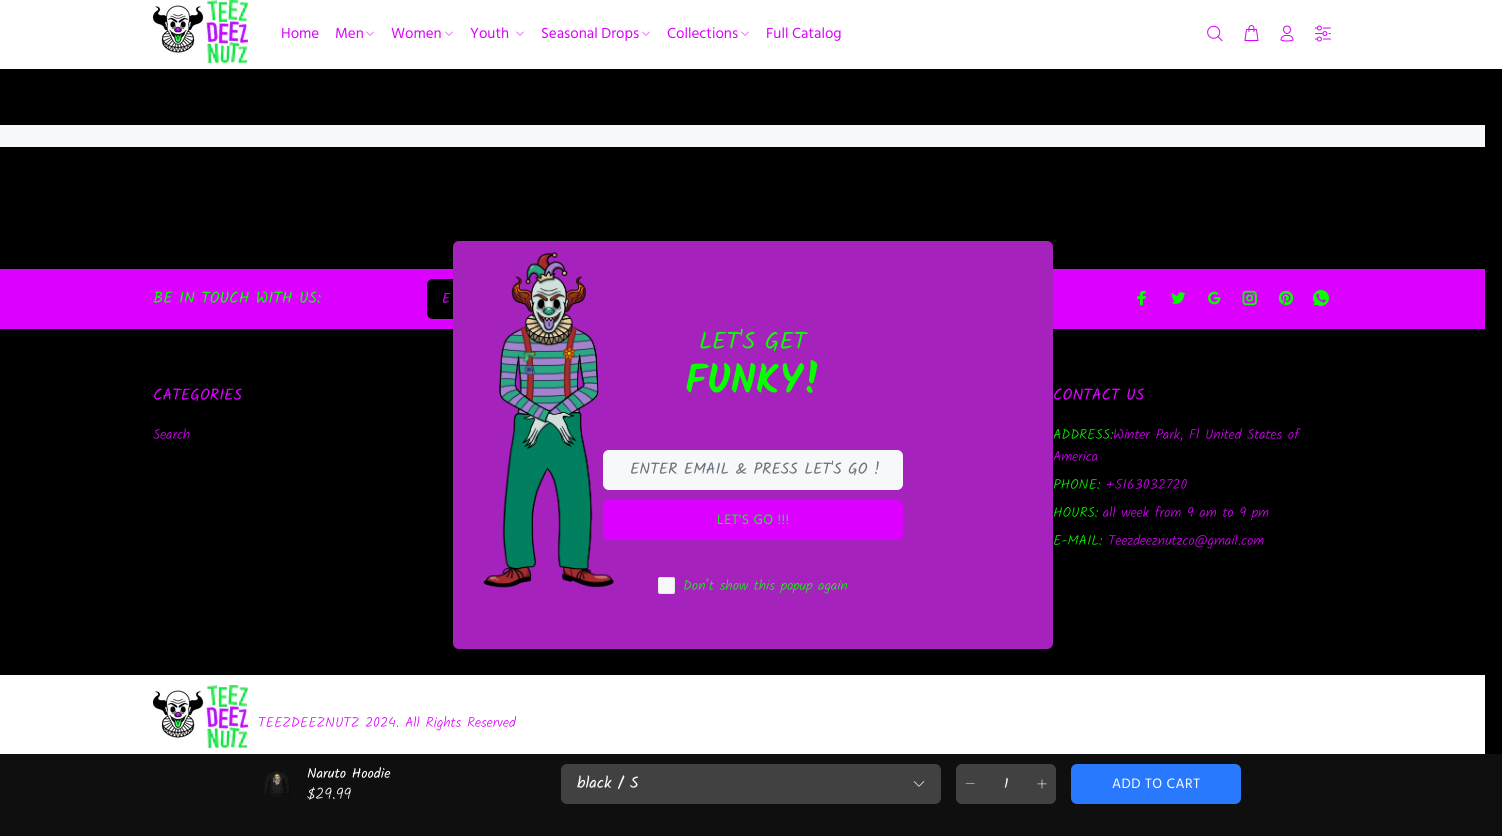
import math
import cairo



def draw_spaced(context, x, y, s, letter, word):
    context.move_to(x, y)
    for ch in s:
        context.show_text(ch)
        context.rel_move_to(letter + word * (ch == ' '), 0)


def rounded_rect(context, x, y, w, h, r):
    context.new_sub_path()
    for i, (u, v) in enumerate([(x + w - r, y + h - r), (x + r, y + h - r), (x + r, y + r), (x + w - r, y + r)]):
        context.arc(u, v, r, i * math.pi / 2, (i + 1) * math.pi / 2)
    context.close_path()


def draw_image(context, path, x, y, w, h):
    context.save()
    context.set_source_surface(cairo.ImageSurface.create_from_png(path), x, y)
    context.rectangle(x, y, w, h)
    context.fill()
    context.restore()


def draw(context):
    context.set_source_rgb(0, 0, 0)
    context.paint()
    context.set_source_rgb(1, 1, 1)
    context.rectangle(0, 0, 1502, 69)
    context.fill()
    draw_image(context, "images/1.png", 153, 0, 95, 63)
    draw_image(context, "images/2.png", 366, 31, 8, 5)
    draw_image(context, "images/2.png", 445, 31, 8, 5)
    draw_image(context, "images/2.png", 516, 31, 8, 5)
    draw_image(context, "images/2.png", 642, 31, 8, 5)
    draw_image(context, "images/2.png", 741, 31, 8, 5)
    draw_image(context, "images/3.png", 1207, 25, 16, 17)
    draw_image(context, "images/4.png", 1244, 25, 15, 17)
    draw_image(context, "images/5.png", 1280, 25, 14, 17)
    draw_image(context, "images/6.png", 1314, 25, 17, 17)
    context.set_source_rgb(219 / 255, 0, 1)
    context.rectangle(0, 269, 1485, 60)
    context.fill()
    context.set_source_rgb(0, 0, 0)
    context.new_path()
    context.move_to(433, 279)
    context.line_to(934, 279)
    context.line_to(934, 319)
    context.line_to(433, 319)
    context.curve_to(429.5, 319, 427, 316.5, 427, 313)
    context.line_to(427, 285)
    context.curve_to(427, 281.5, 429.5, 279, 433, 279)
    context.close_path()
    context.fill()
    draw_image(context, "images/7.png", 1137, 290, 10, 16)
    draw_image(context, "images/8.png", 1171, 292, 15, 12)
    draw_image(context, "images/9.png", 1208, 291, 13, 14)
    draw_image(context, "images/10.png", 1242, 290, 15, 16)
    draw_image(context, "images/11.png", 1278, 290, 16, 16)
    draw_image(context, "images/12.png", 1313, 290, 16, 16)
    context.set_source_rgb(1, 1, 1)
    context.rectangle(0, 675, 1485, 79)
    context.fill()
    draw_image(context, "images/1.png", 153, 685, 95, 63)
    context.set_source_rgb(166 / 255, 34 / 255, 188 / 255)
    rounded_rect(context, 453, 241, 600, 408, 6)
    context.fill()
    draw_image(context, "images/13.png", 483, 252, 131, 336)
    context.set_source_rgb(247 / 255, 248 / 255, 250 / 255)
    rounded_rect(context, 603.5, 450.5, 299, 39, 5.5)
    context.fill_preserve()
    context.set_line_width(1)
    context.stroke()
    context.set_source_rgb(219 / 255, 0, 1)
    rounded_rect(context, 603, 500, 300, 40, 6)
    context.fill()
    context.set_source_rgb(247 / 255, 248 / 255, 250 / 255)
    rounded_rect(context, 658.5, 577.5, 16, 16, 1.5)
    context.fill_preserve()
    context.set_source_rgb(233 / 255, 231 / 255, 231 / 255)
    context.stroke()
    context.set_source_rgb(247 / 255, 248 / 255, 250 / 255)
    context.rectangle(0, 125, 1485, 22)
    context.fill()
    context.set_source_rgb(15 / 255, 15 / 255, 15 / 255)
    context.rectangle(0, 754, 1502, 82)
    context.fill()
    draw_image(context, "images/14.png", 264, 769, 26, 28)
    context.set_source_rgb(65 / 255, 65 / 255, 65 / 255)
    rounded_rect(context, 561.5, 764.5, 379, 39, 5.5)
    context.fill_preserve()
    context.stroke()
    draw_image(context, "images/15.png", 913, 781, 12, 6)
    rounded_rect(context, 956, 764, 100, 40, 6)
    context.fill()
    context.set_source_rgb(1, 1, 1)
    context.new_path()
    context.move_to(974.5, 783.5)
    context.line_to(974.5, 784)
    context.line_to(965.5, 784)
    context.line_to(966, 783.5)
    context.close_path()
    context.fill()
    draw_image(context, "images/16.png", 1037, 779, 10, 10)
    context.set_source_rgb(40 / 255, 121 / 255, 254 / 255)
    rounded_rect(context, 1071, 764, 170, 40, 6)
    context.fill()
    context.select_font_face("Hind")
    context.set_font_size(15)
    context.set_source_rgb(219 / 255, 0, 1)
    context.move_to(281, 38)
    context.show_text("Home")
    context.move_to(335, 38)
    context.show_text("Men")
    context.move_to(391, 38)
    context.show_text("Women")
    context.move_to(470, 38)
    context.show_text("Youth")
    context.move_to(541, 38)
    context.show_text("Seasonal Drops")
    context.move_to(667, 38)
    context.show_text("Collections")
    context.move_to(766, 38)
    context.show_text("Full Catalog")
    context.select_font_face("Kalam")
    context.set_font_size(16)
    context.set_source_rgb(8 / 255, 1, 0)
    context.move_to(153, 303)
    context.show_text("BE IN TOUCH WITH US:")
    context.set_font_size(14)
    context.set_source_rgb(219 / 255, 0, 1)
    context.move_to(442, 303)
    context.show_text("E")
    context.set_font_size(16)
    context.move_to(153, 400)
    context.show_text("CATEGORIES")
    context.select_font_face("Kalam Light")
    context.set_font_size(14)
    context.move_to(153, 439)
    context.show_text("Search")
    context.select_font_face("Kalam")
    context.set_font_size(16)
    context.move_to(1053, 400)
    context.show_text("CONTACT US")
    context.select_font_face("Kalam Light")
    context.set_font_size(14)
    context.set_source_rgb(8 / 255, 1, 0)
    context.move_to(1053, 439)
    context.show_text("ADDRESS:")
    context.set_source_rgb(219 / 255, 0, 1)
    context.move_to(1113, 439)
    context.show_text("Winter Park, Fl United States of")
    context.move_to(1053, 461)
    context.show_text("America")
    context.set_source_rgb(8 / 255, 1, 0)
    context.move_to(1053, 489)
    context.show_text("PHONE:")
    context.set_source_rgb(219 / 255, 0, 1)
    context.move_to(1106, 489)
    context.show_text("+5163032720")
    context.set_source_rgb(8 / 255, 1, 0)
    context.move_to(1053, 517)
    context.show_text("HOURS:")
    context.set_source_rgb(219 / 255, 0, 1)
    context.move_to(1103, 517)
    context.show_text("all week from 9 am to 9 pm")
    context.set_source_rgb(8 / 255, 1, 0)
    context.move_to(1053, 545)
    context.show_text("E-MAIL:")
    context.set_source_rgb(219 / 255, 0, 1)
    context.move_to(1108, 545)
    context.show_text("Teezdeeznutzco@gmail.com")
    context.move_to(258, 727)
    context.show_text("TEEZDEEZNUTZ 2024. All Rights Reserved")
    context.select_font_face("Kalam")
    context.set_font_size(24)
    context.set_source_rgb(8 / 255, 1, 0)
    context.move_to(699, 349)
    context.show_text("LET'S GET")
    context.select_font_face("Kalam", cairo.FontSlant.NORMAL, cairo.FontWeight.BOLD)
    context.set_font_size(40)
    context.move_to(685, 393)
    context.show_text("FUNKY!")
    context.select_font_face("Kalam")
    context.set_font_size(16)
    context.set_source_rgb(108 / 255, 117 / 255, 125 / 255)
    context.move_to(630, 474)
    context.show_text("ENTER EMAIL & PRESS LET'S GO !")
    context.select_font_face("Hind")
    context.set_font_size(14)
    context.set_source_rgb(8 / 255, 1, 0)
    draw_spaced(context, 717, 524, "LET'S GO !!!", 0.5, 0)
    context.select_font_face("Kalam Light")
    context.move_to(683, 590)
    context.show_text("Don’t show this popup again")
    context.select_font_face("Kalam")
    context.set_source_rgb(1, 1, 1)
    context.move_to(307, 778)
    context.show_text("Naruto Hoodie")
    context.select_font_face("Kalam Light")
    context.set_font_size(16)
    context.move_to(307, 799)
    context.show_text("$29.99")
    context.select_font_face("Kalam")
    context.move_to(577, 788)
    context.show_text("black / S")
    context.set_font_size(14)
    context.move_to(1004, 788)
    context.show_text("1")
    context.select_font_face("Hind")
    draw_spaced(context, 1112, 788, "ADD TO CART", 0.5, 0)


surface = cairo.ImageSurface(cairo.Format.RGB24, 1502, 836)
context = cairo.Context(surface)
options = cairo.FontOptions()
options.set_hint_metrics(cairo.HintMetrics.OFF)
options.set_hint_style(cairo.HintStyle.NONE)
context.set_font_options(options)
context.set_miter_limit(4)
draw(context)
surface.write_to_png("out.png")
